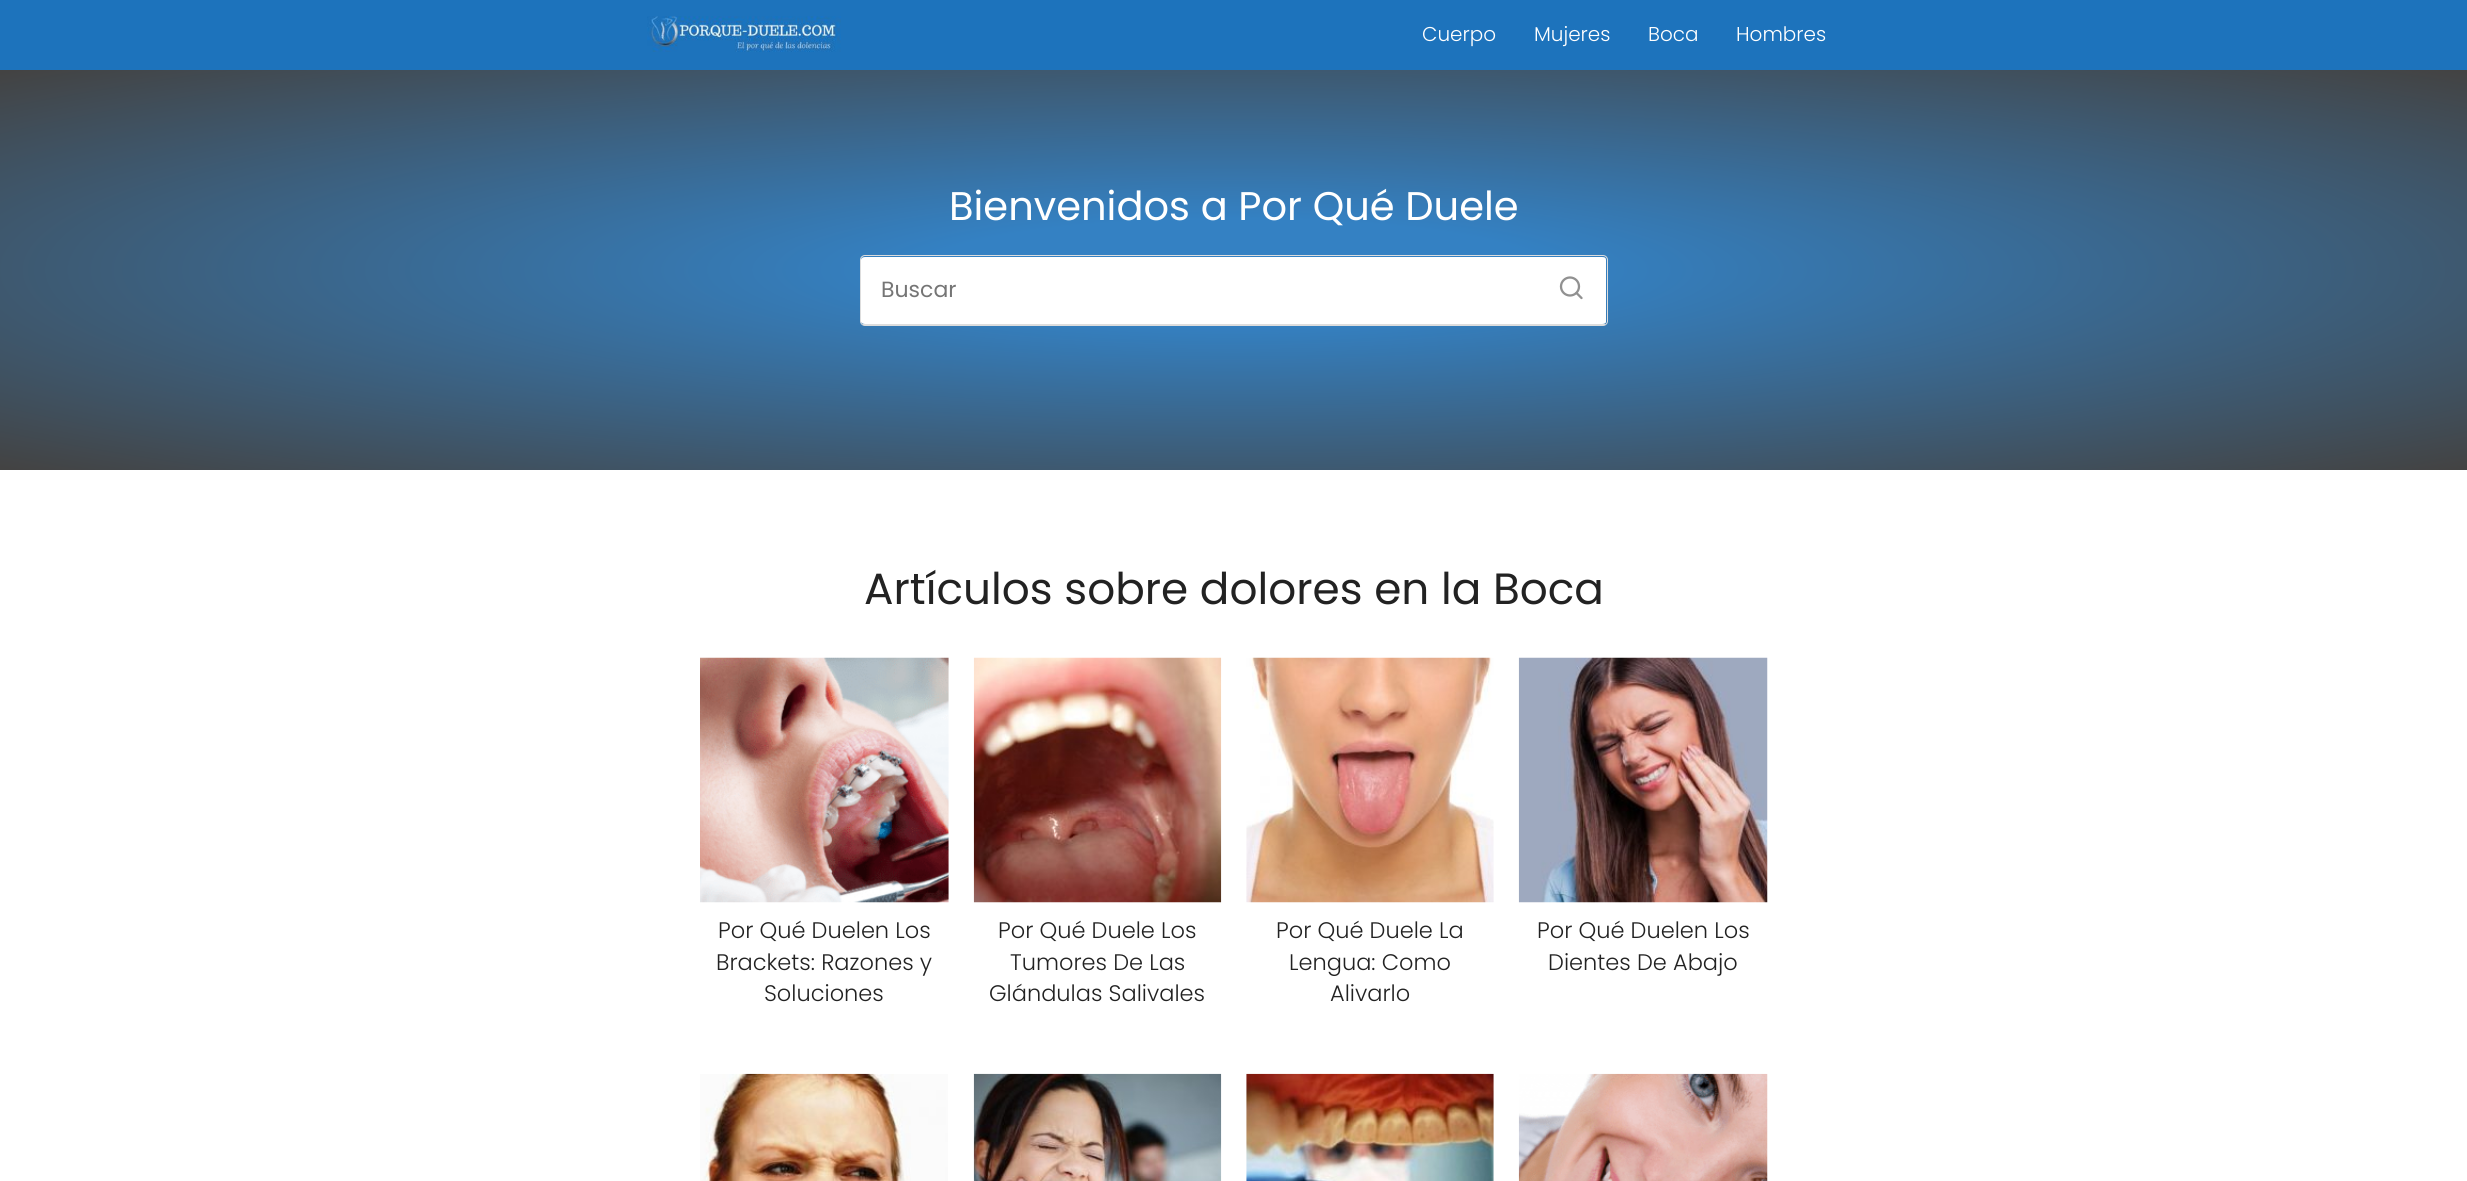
import math
import cairo



def rounded_rect(context, x, y, w, h, r):
    context.new_sub_path()
    for i, (u, v) in enumerate([(x + w - r, y + h - r), (x + r, y + h - r), (x + r, y + r), (x + w - r, y + r)]):
        context.arc(u, v, r, i * math.pi / 2, (i + 1) * math.pi / 2)
    context.close_path()


def draw_image(context, path, x, y, w, h):
    context.save()
    context.set_source_surface(cairo.ImageSurface.create_from_png(path), x, y)
    context.rectangle(x, y, w, h)
    context.fill()
    context.restore()


def draw(context):
    context.set_source_rgb(1, 1, 1)
    context.paint()
    context.set_source_rgb(29 / 255, 115 / 255, 188 / 255)
    context.rectangle(0, 0, 2467, 70)
    context.fill()
    draw_image(context, "images/1.png", 647, 16, 194, 36)
    gradient = cairo.RadialGradient(0, 0, 0, 0, 0, 1)
    gradient.set_matrix(cairo.Matrix(1 / 1745, 0, 0, 1 / 283, -1 * 1234 / 1745, -1 * 270 / 283))
    gradient.add_color_stop_rgba(0.18, 52 / 255, 129 / 255, 195 / 255, 1)
    gradient.add_color_stop_rgba(1, 67 / 255, 67 / 255, 67 / 255, 1)
    context.set_source(gradient)
    context.rectangle(0, 70, 2467, 400)
    context.fill()
    context.set_source_rgb(1, 1, 1)
    context.new_path()
    context.move_to(865, 257)
    context.line_to(1602, 257)
    context.curve_to(1605, 257, 1606, 258, 1606, 260)
    context.line_to(1606, 322)
    context.curve_to(1606, 323, 1605, 324, 1602, 324)
    context.line_to(865, 324)
    context.curve_to(863, 324, 861, 323, 861, 322)
    context.line_to(861, 260)
    context.curve_to(861, 258, 863, 257, 865, 257)
    context.close_path()
    context.fill()
    rounded_rect(context, 860.5, 255.5, 747, 70, 4.5)
    context.set_source_rgb(221 / 255, 221 / 255, 221 / 255)
    context.set_line_width(1)
    context.stroke()
    context.rectangle(863, 324, 742, 1)
    context.fill()
    context.arc(1570, 286.5, 9, 0, 2 * math.pi)
    context.set_source_rgb(145 / 255, 145 / 255, 145 / 255)
    context.set_line_width(2.3)
    context.stroke()
    context.new_path()
    context.move_to(1581.5, 298)
    context.line_to(1576.5, 293)
    context.set_line_cap(cairo.LineCap.ROUND)
    context.set_line_join(cairo.LineJoin.ROUND)
    context.stroke()
    draw_image(context, "images/2.png", 700, 657, 249, 246)
    draw_image(context, "images/3.png", 973, 657, 249, 246)
    draw_image(context, "images/4.png", 1246, 657, 248, 246)
    draw_image(context, "images/5.png", 1518, 657, 250, 246)
    draw_image(context, "images/6.png", 700, 1073, 248, 108)
    draw_image(context, "images/7.png", 973, 1073, 249, 108)
    draw_image(context, "images/8.png", 1246, 1073, 248, 108)
    draw_image(context, "images/9.png", 1518, 1073, 250, 108)
    context.select_font_face("Poppins Light")
    context.set_font_size(20)
    context.set_source_rgb(1, 1, 1)
    context.move_to(1422, 41)
    context.show_text("Cuerpo")
    context.move_to(1534, 41)
    context.show_text("Mujeres")
    context.move_to(1648, 41)
    context.show_text("Boca")
    context.move_to(1736, 41)
    context.show_text("Hombres")
    context.select_font_face("Poppins")
    context.set_font_size(40)
    context.move_to(949, 220)
    context.show_text("Bienvenidos a Por Qué Duele")
    context.set_font_size(22)
    context.set_source_rgb(117 / 255, 117 / 255, 117 / 255)
    context.move_to(881, 297)
    context.show_text("Buscar")
    context.set_font_size(43.75)
    context.set_source_rgb(34 / 255, 34 / 255, 34 / 255)
    context.move_to(864, 604)
    context.show_text("Artículos sobre dolores en la Boca")
    context.select_font_face("Poppins Light")
    context.set_font_size(22.5)
    context.move_to(718, 938)
    context.show_text("Por Qué Duelen Los")
    context.move_to(716, 970)
    context.show_text("Brackets: Razones y")
    context.move_to(764, 1001)
    context.show_text("Soluciones")
    context.move_to(998, 938)
    context.show_text("Por Qué Duele Los")
    context.move_to(1010, 970)
    context.show_text("Tumores De Las")
    context.move_to(989, 1001)
    context.show_text("Glándulas Salivales")
    context.move_to(1276, 938)
    context.show_text("Por Qué Duele La")
    context.move_to(1289, 970)
    context.show_text("Lengua: Como")
    context.move_to(1330, 1001)
    context.show_text("Alivarlo")
    context.move_to(1537, 938)
    context.show_text("Por Qué Duelen Los")
    context.move_to(1548, 970)
    context.show_text("Dientes De Abajo")


surface = cairo.ImageSurface(cairo.Format.RGB24, 2467, 1181)
context = cairo.Context(surface)
options = cairo.FontOptions()
options.set_hint_metrics(cairo.HintMetrics.OFF)
options.set_hint_style(cairo.HintStyle.NONE)
context.set_font_options(options)
context.set_miter_limit(4)
draw(context)
surface.write_to_png("out.png")
